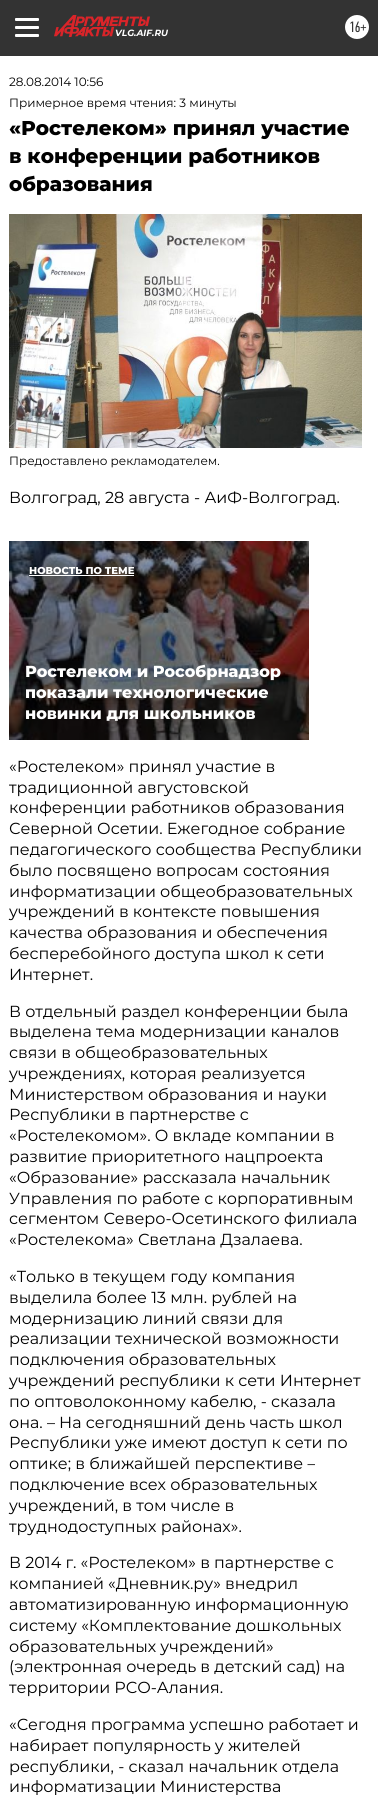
import math
import cairo



def rounded_rect(context, x, y, w, h, r):
    context.new_sub_path()
    for i, (u, v) in enumerate([(x + w - r, y + h - r), (x + r, y + h - r), (x + r, y + r), (x + w - r, y + r)]):
        context.arc(u, v, r, i * math.pi / 2, (i + 1) * math.pi / 2)
    context.close_path()


def draw_image(context, path, x, y, w, h):
    context.save()
    context.set_source_surface(cairo.ImageSurface.create_from_png(path), x, y)
    context.rectangle(x, y, w, h)
    context.fill()
    context.restore()


def draw(context):
    context.set_source_rgb(1, 1, 1)
    context.paint()
    context.set_source_rgb(51 / 255, 51 / 255, 51 / 255)
    context.rectangle(0, 0, 378, 56)
    context.fill()
    context.set_source_rgb(1, 1, 1)
    rounded_rect(context, 15, 18, 24, 3, 1)
    context.fill()
    rounded_rect(context, 15, 26, 24, 3, 1)
    context.fill()
    rounded_rect(context, 15, 34, 24, 3, 1)
    context.fill()
    draw_image(context, "images/1.png", 54, 15, 96, 22)
    context.arc(357, 27, 12, 0, 2 * math.pi)
    context.fill()
    draw_image(context, "images/2.png", 9, 214, 353, 234)
    draw_image(context, "images/3.png", 9, 541, 300, 199)
    context.rectangle(29, 575, 105, 1)
    context.fill()
    context.select_font_face("Montserrat", cairo.FontSlant.ITALIC, cairo.FontWeight.BOLD)
    context.set_font_size(9)
    context.move_to(115, 36)
    context.show_text("VLG.AIF.RU")
    context.select_font_face("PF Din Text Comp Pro")
    context.set_font_size(15)
    context.set_source_rgb(51 / 255, 51 / 255, 51 / 255)
    context.move_to(349, 32)
    context.show_text("16+")
    context.select_font_face("Montserrat")
    context.set_font_size(12)
    context.set_source_rgb(0, 0, 0)
    context.move_to(9, 86)
    context.show_text("28.08.2014 10:56")
    context.move_to(9, 107)
    context.show_text("Примерное время чтения: 3 минуты")
    context.select_font_face("Montserrat ExtraBold")
    context.set_font_size(20)
    context.move_to(9, 135)
    context.show_text("«Ростелеком» принял участие")
    context.move_to(9, 163)
    context.show_text("в конференции работников")
    context.move_to(9, 191)
    context.show_text("образования")
    context.select_font_face("Montserrat")
    context.set_font_size(12)
    context.move_to(9, 465)
    context.show_text("Предоставлено рекламодателем.")
    context.set_font_size(16)
    context.move_to(9, 503)
    context.show_text("Волгоград, 28 августа - АиФ-Волгоград.")
    context.select_font_face("Montserrat ExtraBold")
    context.set_font_size(10)
    context.set_source_rgb(1, 1, 1)
    context.move_to(29, 574)
    context.show_text("НОВОСТЬ ПО ТЕМЕ")
    context.set_font_size(16)
    context.move_to(25, 677)
    context.show_text("Ростелеком и Рособрнадзор")
    context.move_to(25, 698)
    context.show_text("показали технологические")
    context.move_to(25, 719)
    context.show_text("новинки для школьников")
    context.select_font_face("Montserrat")
    context.set_source_rgb(0, 0, 0)
    context.move_to(9, 772)
    context.show_text("«Ростелеком» принял участие в")
    context.move_to(9, 793)
    context.show_text("традиционной августовской")
    context.move_to(9, 813)
    context.show_text("конференции работников образования")
    context.move_to(9, 834)
    context.show_text("Северной Осетии. Ежегодное собрание")
    context.move_to(9, 855)
    context.show_text("педагогического сообщества Республики")
    context.move_to(9, 876)
    context.show_text("было посвящено вопросам состояния")
    context.move_to(9, 897)
    context.show_text("информатизации общеобразовательных")
    context.move_to(9, 917)
    context.show_text("учреждений в контексте повышения")
    context.move_to(9, 938)
    context.show_text("качества образования и обеспечения")
    context.move_to(9, 959)
    context.show_text("бесперебойного доступа школ к сети")
    context.move_to(9, 980)
    context.show_text("Интернет.")
    context.move_to(9, 1017)
    context.show_text("В отдельный раздел конференции была")
    context.move_to(9, 1037)
    context.show_text("выделена тема модернизации каналов")
    context.move_to(9, 1058)
    context.show_text("связи в общеобразовательных")
    context.move_to(9, 1079)
    context.show_text("учреждениях, которая реализуется")
    context.move_to(9, 1100)
    context.show_text("Министерством образования и науки")
    context.move_to(9, 1120)
    context.show_text("Республики в партнерстве с")
    context.move_to(9, 1141)
    context.show_text("«Ростелекомом». О вкладе компании в")
    context.move_to(9, 1162)
    context.show_text("развитие приоритетного нацпроекта")
    context.move_to(9, 1183)
    context.show_text("«Образование» рассказала начальник")
    context.move_to(9, 1204)
    context.show_text("Управления по работе с корпоративным")
    context.move_to(9, 1224)
    context.show_text("сегментом Северо-Осетинского филиала")
    context.move_to(9, 1245)
    context.show_text("«Ростелекома» Светлана Дзалаева.")
    context.move_to(9, 1282)
    context.show_text("«Только в текущем году компания")
    context.move_to(9, 1303)
    context.show_text("выделила более 13 млн. рублей на")
    context.move_to(9, 1324)
    context.show_text("модернизацию линий связи для")
    context.move_to(9, 1344)
    context.show_text("реализации технической возможности")
    context.move_to(9, 1365)
    context.show_text("подключения образовательных")
    context.move_to(9, 1386)
    context.show_text("учреждений республики к сети Интернет")
    context.move_to(9, 1407)
    context.show_text("по оптоволоконному кабелю, - сказала")
    context.move_to(9, 1428)
    context.show_text("она. – На сегодняшний день часть школ")
    context.move_to(9, 1448)
    context.show_text("Республики уже имеют доступ к сети по")
    context.move_to(9, 1469)
    context.show_text("оптике; в ближайшей перспективе –")
    context.move_to(9, 1490)
    context.show_text("подключение всех образовательных")
    context.move_to(9, 1511)
    context.show_text("учреждений, в том числе в")
    context.move_to(9, 1532)
    context.show_text("труднодоступных районах».")
    context.move_to(9, 1568)
    context.show_text("В 2014 г. «Ростелеком» в партнерстве с")
    context.move_to(9, 1589)
    context.show_text("компанией «Дневник.ру» внедрил")
    context.move_to(9, 1610)
    context.show_text("автоматизированную информационную")
    context.move_to(9, 1631)
    context.show_text("систему «Комплектование дошкольных")
    context.move_to(9, 1652)
    context.show_text("образовательных учреждений»")
    context.move_to(9, 1672)
    context.show_text("(электронная очередь в детский сад) на")
    context.move_to(9, 1693)
    context.show_text("территории РСО-Алания.")
    context.move_to(9, 1730)
    context.show_text("«Сегодня программа успешно работает и")
    context.move_to(9, 1751)
    context.show_text("набирает популярность у жителей")
    context.move_to(9, 1772)
    context.show_text("республики, - сказал начальник отдела")
    context.move_to(9, 1792)
    context.show_text("информатизации Министерства")


surface = cairo.ImageSurface(cairo.Format.RGB24, 378, 1795)
context = cairo.Context(surface)
options = cairo.FontOptions()
options.set_hint_metrics(cairo.HintMetrics.OFF)
options.set_hint_style(cairo.HintStyle.NONE)
context.set_font_options(options)
context.set_miter_limit(4)
draw(context)
surface.write_to_png("out.png")
